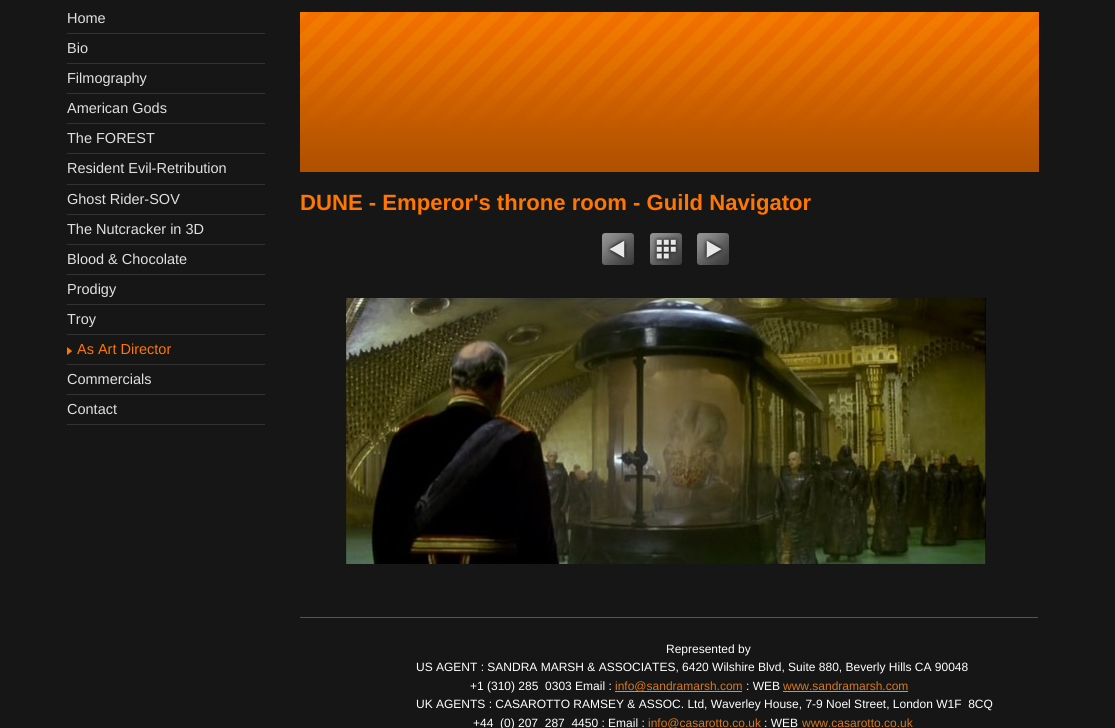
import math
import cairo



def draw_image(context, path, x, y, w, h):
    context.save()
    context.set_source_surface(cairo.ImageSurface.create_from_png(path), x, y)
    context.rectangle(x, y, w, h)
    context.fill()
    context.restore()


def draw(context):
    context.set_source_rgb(22 / 255, 22 / 255, 22 / 255)
    context.paint()
    context.set_source_rgb(51 / 255, 51 / 255, 51 / 255)
    context.rectangle(67, 33, 198, 1)
    context.fill()
    context.rectangle(67, 63, 198, 1)
    context.fill()
    context.rectangle(67, 93, 198, 1)
    context.fill()
    context.rectangle(67, 123, 198, 1)
    context.fill()
    context.rectangle(67, 153, 198, 1)
    context.fill()
    context.rectangle(67, 184, 198, 1)
    context.fill()
    context.rectangle(67, 214, 198, 1)
    context.fill()
    context.rectangle(67, 244, 198, 1)
    context.fill()
    context.rectangle(67, 274, 198, 1)
    context.fill()
    context.rectangle(67, 304, 198, 1)
    context.fill()
    context.rectangle(67, 334, 198, 1)
    context.fill()
    context.rectangle(67, 364, 198, 1)
    context.fill()
    draw_image(context, "images/1.png", 67, 347, 5, 8)
    context.rectangle(67, 394, 198, 1)
    context.fill()
    context.rectangle(67, 424, 198, 1)
    context.fill()
    draw_image(context, "images/2.png", 300, 12, 739, 160)
    draw_image(context, "images/3.png", 602, 233, 32, 32)
    draw_image(context, "images/4.png", 650, 233, 32, 32)
    draw_image(context, "images/5.png", 697, 233, 32, 32)
    draw_image(context, "images/6.png", 346, 298, 640, 266)
    context.set_source_rgb(81 / 255, 85 / 255, 90 / 255)
    context.rectangle(300, 617, 738, 1)
    context.fill()
    context.set_source_rgb(158 / 255, 158 / 255, 158 / 255)
    context.rectangle(615, 691, 127, 1)
    context.fill()
    context.rectangle(783, 691, 125, 1)
    context.fill()
    context.select_font_face("Liberation Sans")
    context.set_font_size(14.5)
    context.set_source_rgb(225 / 255, 224 / 255, 223 / 255)
    context.move_to(67, 23)
    context.show_text("Home")
    context.move_to(67, 53)
    context.show_text("Bio")
    context.move_to(67, 83)
    context.show_text("Filmography")
    context.move_to(67, 113)
    context.show_text("American Gods")
    context.move_to(67, 143)
    context.show_text("The FOREST")
    context.move_to(67, 173)
    context.show_text("Resident Evil-Retribution")
    context.move_to(67, 204)
    context.show_text("Ghost Rider-SOV")
    context.move_to(67, 234)
    context.show_text("The Nutcracker in 3D")
    context.move_to(67, 264)
    context.show_text("Blood & Chocolate")
    context.move_to(67, 294)
    context.show_text("Prodigy")
    context.move_to(67, 324)
    context.show_text("Troy")
    context.set_source_rgb(1, 118 / 255, 0)
    context.move_to(77, 354)
    context.show_text("As Art Director")
    context.set_source_rgb(225 / 255, 224 / 255, 223 / 255)
    context.move_to(67, 384)
    context.show_text("Commercials")
    context.move_to(67, 414)
    context.show_text("Contact")
    context.select_font_face("Liberation Sans", cairo.FontSlant.NORMAL, cairo.FontWeight.BOLD)
    context.set_font_size(22.1)
    context.set_source_rgb(1, 118 / 255, 0)
    context.move_to(300, 210)
    context.show_text("DUNE - Emperor's throne room - Guild Navigator")
    context.select_font_face("Liberation Sans")
    context.set_font_size(12)
    context.set_source_rgb(1, 1, 1)
    context.move_to(666, 653)
    context.show_text("Represented by")
    context.move_to(416, 671)
    context.show_text("US AGENT : SANDRA MARSH & ASSOCIATES, 6420 Wilshire Blvd, Suite 880, Beverly Hills CA 90048")
    context.move_to(470, 690)
    context.show_text("+1 (310) 285  0303 Email :")
    context.set_source_rgb(215 / 255, 121 / 255, 27 / 255)
    context.move_to(615, 690)
    context.show_text("info@sandramarsh.com")
    context.set_source_rgb(1, 1, 1)
    context.move_to(746, 690)
    context.show_text(": WEB")
    context.set_source_rgb(215 / 255, 121 / 255, 27 / 255)
    context.move_to(783, 690)
    context.show_text("www.sandramarsh.com")
    context.set_source_rgb(1, 1, 1)
    context.move_to(416, 708)
    context.show_text("UK AGENTS : CASAROTTO RAMSEY & ASSOC. Ltd, Waverley House, 7-9 Noel Street, London W1F  8CQ")
    context.move_to(473, 727)
    context.show_text("+44  (0) 207  287  4450 : Email :")
    context.set_source_rgb(215 / 255, 121 / 255, 27 / 255)
    context.move_to(648, 727)
    context.show_text("info@casarotto.co.uk")
    context.set_source_rgb(1, 1, 1)
    context.move_to(764, 727)
    context.show_text(": WEB")
    context.set_source_rgb(215 / 255, 121 / 255, 27 / 255)
    context.move_to(802, 727)
    context.show_text("www.casarotto.co.uk")


surface = cairo.ImageSurface(cairo.Format.RGB24, 1115, 728)
context = cairo.Context(surface)
options = cairo.FontOptions()
options.set_hint_metrics(cairo.HintMetrics.OFF)
options.set_hint_style(cairo.HintStyle.NONE)
context.set_font_options(options)
context.set_miter_limit(4)
draw(context)
surface.write_to_png("out.png")
